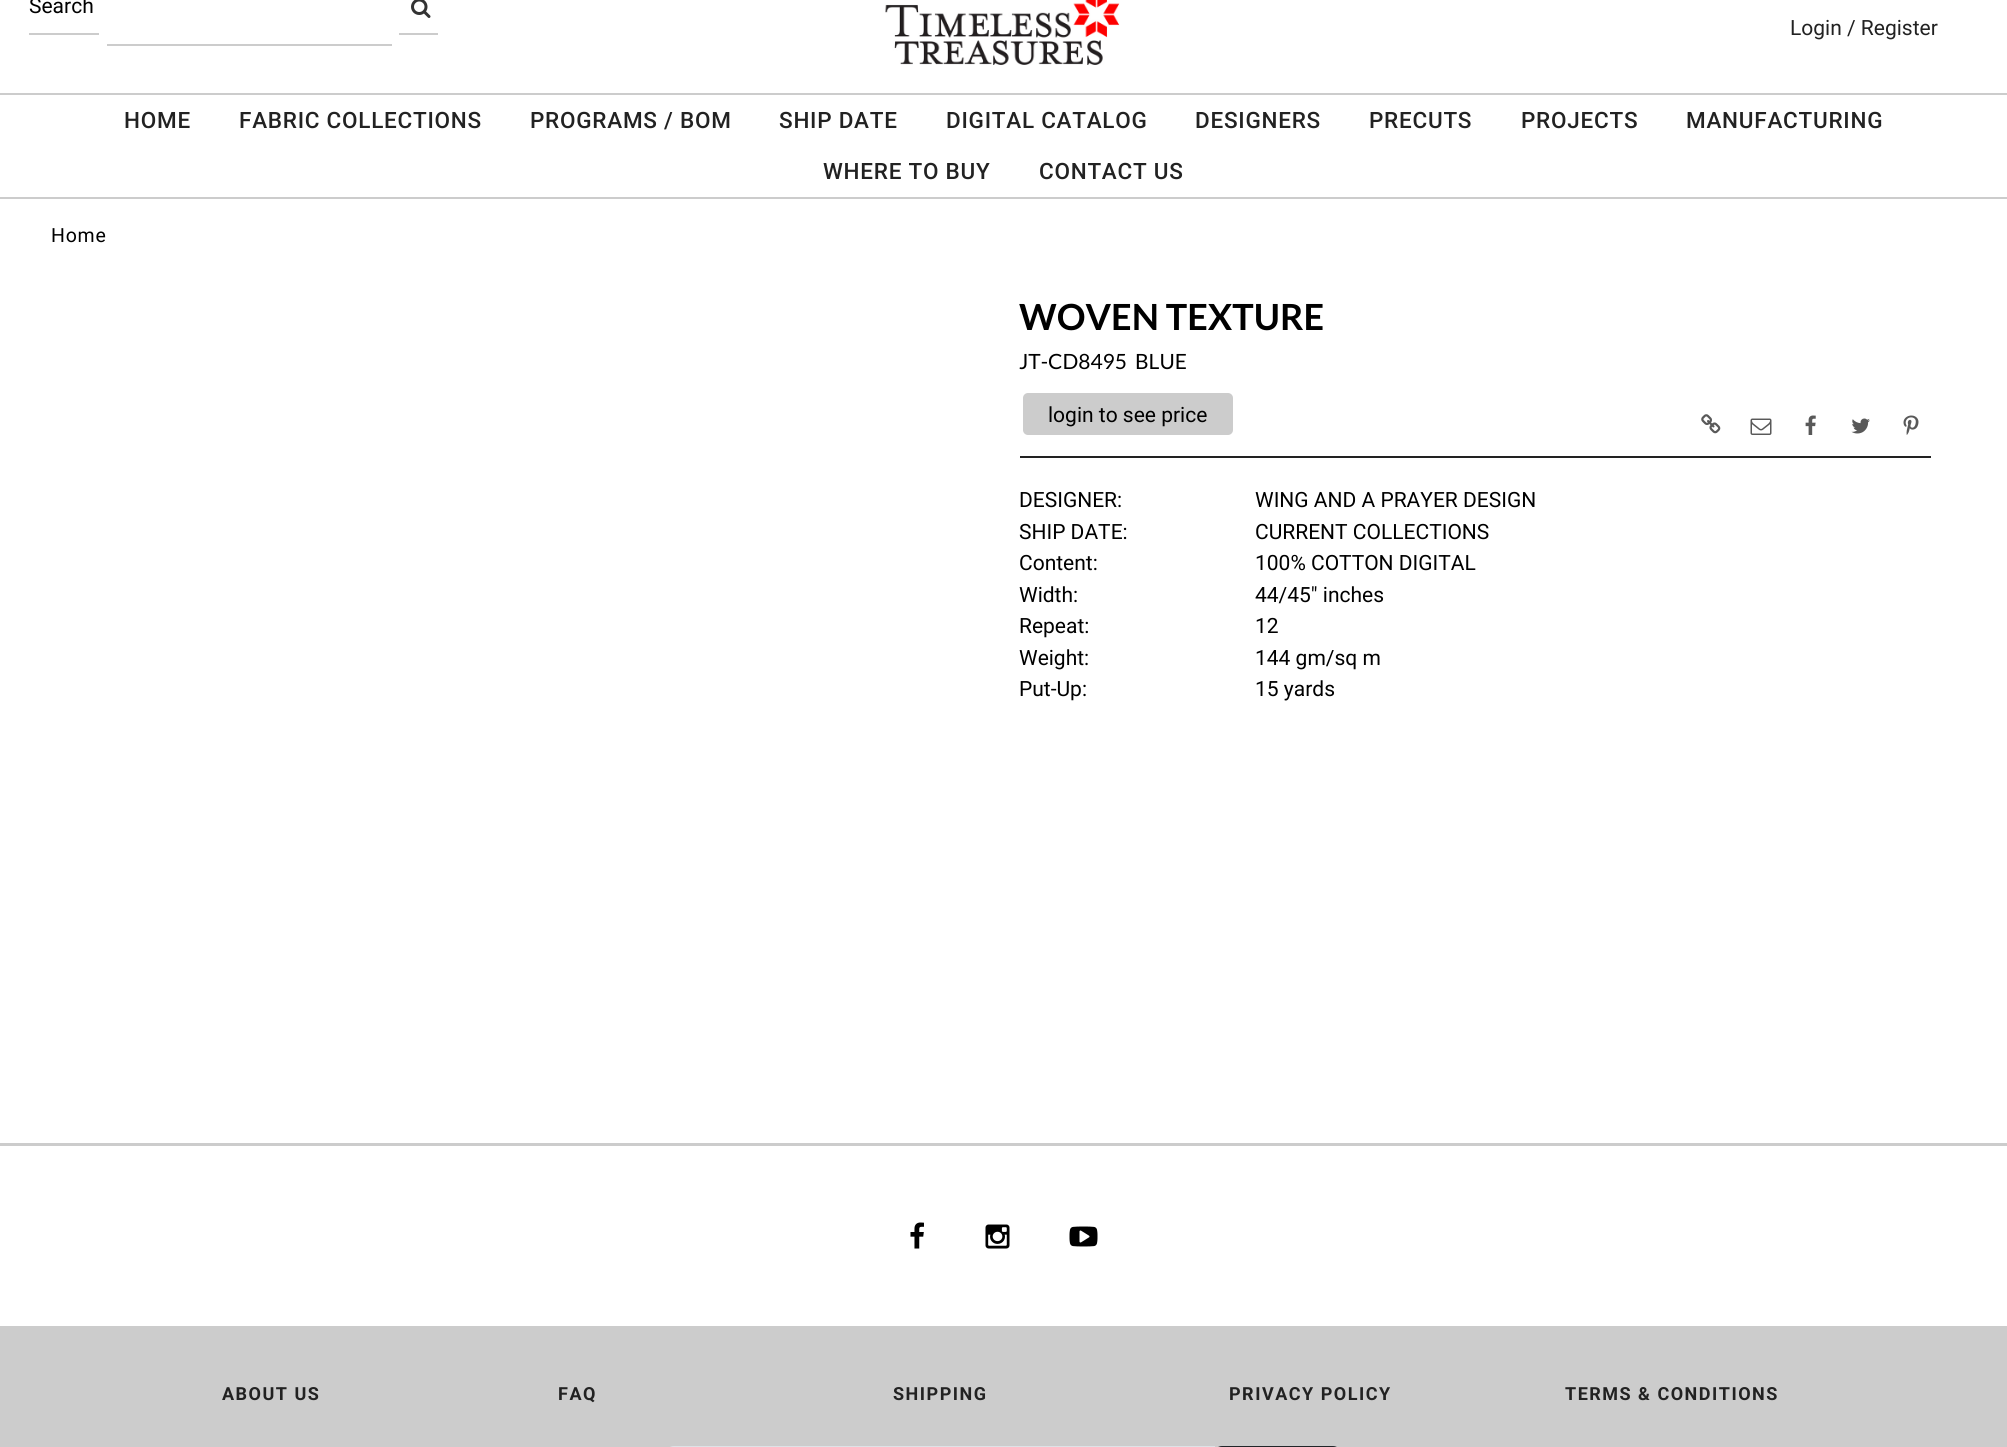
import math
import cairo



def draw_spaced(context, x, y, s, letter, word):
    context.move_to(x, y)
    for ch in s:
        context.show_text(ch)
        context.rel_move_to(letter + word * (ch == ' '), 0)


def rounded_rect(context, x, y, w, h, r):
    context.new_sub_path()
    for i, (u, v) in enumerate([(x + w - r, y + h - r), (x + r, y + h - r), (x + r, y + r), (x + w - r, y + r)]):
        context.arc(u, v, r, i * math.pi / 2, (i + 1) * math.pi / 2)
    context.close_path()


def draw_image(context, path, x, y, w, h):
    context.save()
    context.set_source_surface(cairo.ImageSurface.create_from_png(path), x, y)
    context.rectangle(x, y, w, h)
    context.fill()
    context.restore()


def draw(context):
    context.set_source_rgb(1, 1, 1)
    context.paint()
    context.set_source_rgb(204 / 255, 204 / 255, 204 / 255)
    context.rectangle(29, 33, 70, 2)
    context.fill()
    draw_image(context, "images/1.png", 411, 0, 20, 18)
    context.rectangle(399, 33, 39, 2)
    context.fill()
    context.rectangle(107, 44, 285, 2)
    context.fill()
    draw_image(context, "images/2.png", 885, 0, 235, 65)
    context.rectangle(0, 93, 2007, 2)
    context.fill()
    context.rectangle(0, 197, 2007, 2)
    context.fill()
    rounded_rect(context, 1023, 393, 210, 42, 5)
    context.fill()
    draw_image(context, "images/3.png", 1701, 414, 20, 20)
    draw_image(context, "images/4.png", 1750, 418, 22, 17)
    draw_image(context, "images/5.png", 1805, 415, 11, 20)
    draw_image(context, "images/6.png", 1851, 418, 19, 16)
    draw_image(context, "images/7.png", 1903, 415, 16, 20)
    context.set_source_rgb(34 / 255, 34 / 255, 34 / 255)
    context.rectangle(1020, 456, 911, 2)
    context.fill()
    context.set_source_rgb(204 / 255, 204 / 255, 204 / 255)
    context.rectangle(0, 1143, 2007, 3)
    context.fill()
    draw_image(context, "images/8.png", 910, 1222, 14, 27)
    draw_image(context, "images/9.png", 985, 1224, 25, 25)
    draw_image(context, "images/10.png", 1069, 1226, 29, 21)
    context.rectangle(0, 1326, 2007, 121)
    context.fill()
    context.new_path()
    context.move_to(674, 1447)
    context.line_to(1214, 1447)
    context.line_to(1214, 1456)
    context.line_to(674, 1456)
    context.curve_to(670, 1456, 667, 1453, 667, 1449)
    context.line_to(667, 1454)
    context.curve_to(667, 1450, 670, 1447, 674, 1447)
    context.close_path()
    context.set_source_rgb(222 / 255, 226 / 255, 230 / 255)
    context.stroke()
    rounded_rect(context, 1215, 1447, 125, 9, 7)
    context.set_source_rgb(33 / 255, 37 / 255, 41 / 255)
    context.stroke()
    context.select_font_face("Roboto")
    context.set_font_size(21)
    context.set_source_rgb(0, 0, 0)
    context.move_to(29, 13)
    context.show_text("Search")
    context.set_source_rgb(34 / 255, 34 / 255, 34 / 255)
    context.move_to(1790, 35)
    context.show_text("Login / Register")
    context.select_font_face("Roboto Medium")
    context.set_font_size(22.5)
    draw_spaced(context, 124, 128, "HOME", 0.75, 0)
    draw_spaced(context, 239, 128, "FABRIC COLLECTIONS", 0.75, 0)
    draw_spaced(context, 530, 128, "PROGRAMS / BOM", 0.75, 0)
    draw_spaced(context, 779, 128, "SHIP DATE", 0.75, 0)
    draw_spaced(context, 946, 128, "DIGITAL CATALOG", 0.75, 0)
    draw_spaced(context, 1195, 128, "DESIGNERS", 0.75, 0)
    draw_spaced(context, 1369, 128, "PRECUTS", 0.75, 0)
    draw_spaced(context, 1521, 128, "PROJECTS", 0.75, 0)
    draw_spaced(context, 1686, 128, "MANUFACTURING", 0.75, 0)
    draw_spaced(context, 823, 179, "WHERE TO BUY", 0.75, 0)
    draw_spaced(context, 1039, 179, "CONTACT US", 0.75, 0)
    context.select_font_face("Roboto")
    context.set_font_size(19.5)
    context.set_source_rgb(0, 0, 0)
    draw_spaced(context, 51, 242, "Home", 0.75, 0)
    context.select_font_face("Lato", cairo.FontSlant.NORMAL, cairo.FontWeight.BOLD)
    context.set_font_size(36)
    context.move_to(1019, 330)
    context.show_text("WOVEN TEXTURE")
    context.select_font_face("Lato")
    context.set_font_size(21)
    context.move_to(1019, 369)
    context.show_text("JT-CD8495  BLUE")
    context.select_font_face("Roboto")
    context.move_to(1048, 422)
    context.show_text("login to see price")
    context.move_to(1019, 507)
    context.show_text("DESIGNER:")
    context.move_to(1255, 507)
    context.show_text("WING AND A PRAYER DESIGN")
    context.move_to(1019, 539)
    context.show_text("SHIP DATE:")
    context.move_to(1255, 539)
    context.show_text("CURRENT COLLECTIONS")
    context.move_to(1019, 570)
    context.show_text("Content:")
    context.move_to(1255, 570)
    context.show_text("100% COTTON DIGITAL")
    context.move_to(1019, 602)
    context.show_text("Width:")
    context.move_to(1255, 602)
    context.show_text("44/45\" inches")
    context.move_to(1019, 633)
    context.show_text("Repeat:")
    context.move_to(1255, 633)
    context.show_text("12")
    context.move_to(1019, 665)
    context.show_text("Weight:")
    context.move_to(1255, 665)
    context.show_text("144 gm/sq m")
    context.move_to(1019, 696)
    context.show_text("Put-Up:")
    context.move_to(1255, 696)
    context.show_text("15 yards")
    context.select_font_face("Roboto", cairo.FontSlant.NORMAL, cairo.FontWeight.BOLD)
    context.set_font_size(18)
    context.set_source_rgb(34 / 255, 34 / 255, 34 / 255)
    draw_spaced(context, 222, 1400, "ABOUT US", 1.5, 0)
    draw_spaced(context, 558, 1400, "FAQ", 1.5, 0)
    draw_spaced(context, 893, 1400, "SHIPPING", 1.5, 0)
    draw_spaced(context, 1229, 1400, "PRIVACY POLICY", 1.5, 0)
    draw_spaced(context, 1565, 1400, "TERMS & CONDITIONS", 1.5, 0)


surface = cairo.ImageSurface(cairo.Format.RGB24, 2007, 1447)
context = cairo.Context(surface)
options = cairo.FontOptions()
options.set_hint_metrics(cairo.HintMetrics.OFF)
options.set_hint_style(cairo.HintStyle.NONE)
context.set_font_options(options)
context.set_miter_limit(4)
draw(context)
surface.write_to_png("out.png")
